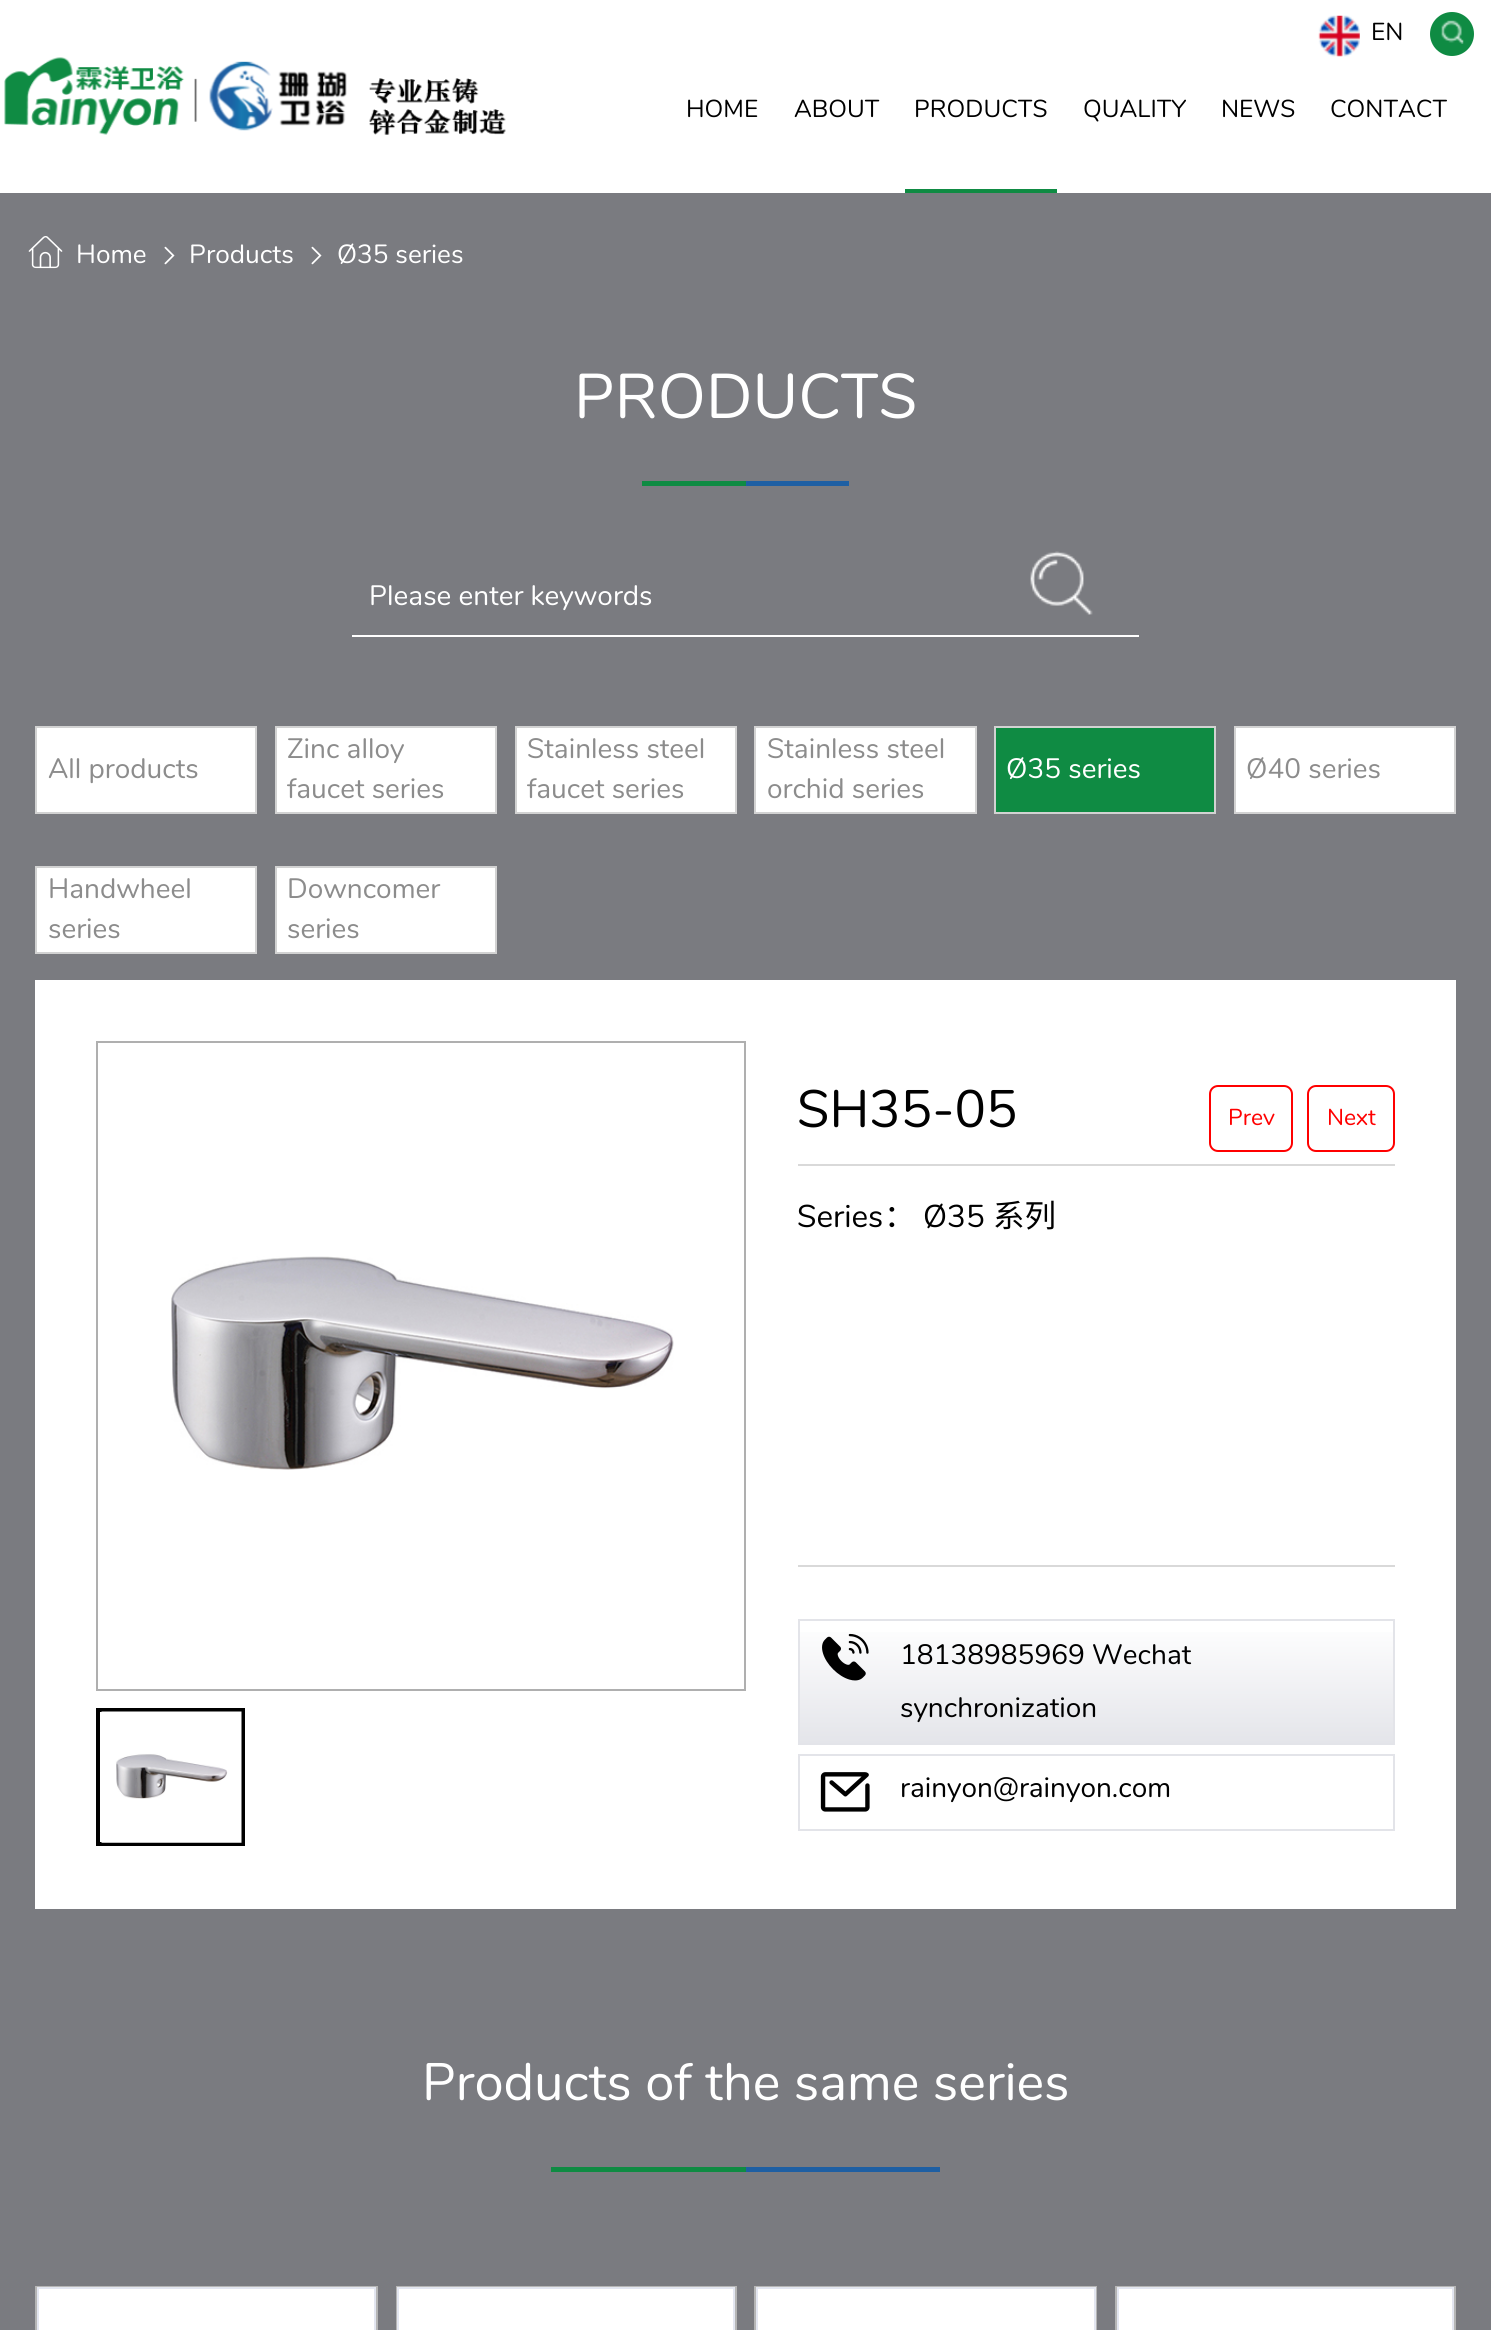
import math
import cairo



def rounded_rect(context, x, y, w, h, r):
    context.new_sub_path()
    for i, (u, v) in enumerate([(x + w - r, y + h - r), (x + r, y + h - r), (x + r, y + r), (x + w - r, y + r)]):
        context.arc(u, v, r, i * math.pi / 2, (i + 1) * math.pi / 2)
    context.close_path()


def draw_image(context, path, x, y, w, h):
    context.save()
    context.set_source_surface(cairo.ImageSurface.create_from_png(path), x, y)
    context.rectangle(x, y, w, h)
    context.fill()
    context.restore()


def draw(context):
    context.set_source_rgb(122 / 255, 123 / 255, 128 / 255)
    context.paint()
    context.set_source_rgb(1, 1, 1)
    context.rectangle(0, 0, 1491, 193)
    context.fill()
    draw_image(context, "images/1.png", 1318, 15, 42, 42)
    context.set_source_rgb(15 / 255, 139 / 255, 67 / 255)
    context.arc(1452, 34, 22, 0, 2 * math.pi)
    context.fill()
    draw_image(context, "images/2.png", 1441, 20, 23, 24)
    draw_image(context, "images/3.png", 4, 57, 343, 78)
    draw_image(context, "images/4.png", 369, 78, 137, 57)
    context.rectangle(905, 189, 152, 4)
    context.fill()
    draw_image(context, "images/5.png", 28, 236, 35, 33)
    draw_image(context, "images/6.png", 164, 246, 11, 19)
    draw_image(context, "images/6.png", 311, 246, 11, 19)
    context.rectangle(642, 481, 104, 5)
    context.fill()
    context.set_source_rgb(30 / 255, 95 / 255, 163 / 255)
    context.rectangle(746, 481, 103, 5)
    context.fill()
    context.set_source_rgb(1, 1, 1)
    context.rectangle(352, 635, 787, 2)
    context.fill()
    draw_image(context, "images/7.png", 1030, 551, 63, 64)
    context.rectangle(36, 727, 220, 86)
    context.fill_preserve()
    context.set_source_rgb(210 / 255, 210 / 255, 210 / 255)
    context.stroke()
    context.set_source_rgb(1, 1, 1)
    context.rectangle(276, 727, 220, 86)
    context.fill_preserve()
    context.set_source_rgb(210 / 255, 210 / 255, 210 / 255)
    context.stroke()
    context.set_source_rgb(1, 1, 1)
    context.rectangle(516, 727, 220, 86)
    context.fill_preserve()
    context.set_source_rgb(210 / 255, 210 / 255, 210 / 255)
    context.stroke()
    context.set_source_rgb(1, 1, 1)
    context.rectangle(755, 727, 221, 86)
    context.fill_preserve()
    context.set_source_rgb(210 / 255, 210 / 255, 210 / 255)
    context.stroke()
    context.set_source_rgb(15 / 255, 139 / 255, 67 / 255)
    context.rectangle(995, 727, 220, 86)
    context.fill_preserve()
    context.set_source_rgb(210 / 255, 210 / 255, 210 / 255)
    context.stroke()
    context.set_source_rgb(1, 1, 1)
    context.rectangle(1235, 727, 220, 86)
    context.fill_preserve()
    context.set_source_rgb(210 / 255, 210 / 255, 210 / 255)
    context.stroke()
    context.set_source_rgb(1, 1, 1)
    context.rectangle(36, 867, 220, 86)
    context.fill_preserve()
    context.set_source_rgb(210 / 255, 210 / 255, 210 / 255)
    context.stroke()
    context.set_source_rgb(1, 1, 1)
    context.rectangle(276, 867, 220, 86)
    context.fill_preserve()
    context.set_source_rgb(210 / 255, 210 / 255, 210 / 255)
    context.stroke()
    context.set_source_rgb(1, 1, 1)
    context.rectangle(35, 980, 1421, 929)
    context.fill()
    context.rectangle(97, 1042, 648, 648)
    context.set_source_rgb(175 / 255, 175 / 255, 175 / 255)
    context.stroke()
    draw_image(context, "images/8.png", 171, 1256, 503, 214)
    context.rectangle(98, 1710, 145, 134)
    context.set_source_rgb(0, 0, 0)
    context.set_line_width(4)
    context.stroke()
    draw_image(context, "images/9.png", 101, 1711, 141, 132)
    rounded_rect(context, 1210, 1086, 82, 65, 8)
    context.set_source_rgb(1, 0, 0)
    context.set_line_width(2)
    context.stroke()
    rounded_rect(context, 1308, 1086, 86, 65, 8)
    context.stroke()
    context.set_source_rgb(217 / 255, 217 / 255, 217 / 255)
    context.rectangle(798, 1164, 597, 2)
    context.fill()
    context.rectangle(798, 1565, 597, 2)
    context.fill()
    gradient = cairo.LinearGradient(1096, 1621, 1096, 1743)
    gradient.add_color_stop_rgba(0, 1, 1, 1, 1)
    gradient.add_color_stop_rgba(1, 228 / 255, 229 / 255, 234 / 255, 1)
    context.set_source(gradient)
    context.rectangle(800, 1632, 593, 111)
    context.fill()
    context.rectangle(799, 1620, 595, 124)
    context.set_source_rgb(227 / 255, 228 / 255, 233 / 255)
    context.stroke()
    draw_image(context, "images/10.png", 822, 1633, 47, 48)
    context.rectangle(799, 1755, 595, 75)
    context.stroke()
    draw_image(context, "images/11.png", 820, 1772, 50, 40)
    context.set_source_rgb(15 / 255, 139 / 255, 67 / 255)
    context.rectangle(551, 2167, 195, 5)
    context.fill()
    context.set_source_rgb(30 / 255, 95 / 255, 163 / 255)
    context.rectangle(746, 2167, 194, 5)
    context.fill()
    context.rectangle(36, 2287, 341, 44)
    context.set_source_rgb(181 / 255, 181 / 255, 181 / 255)
    context.stroke()
    context.set_source_rgb(1, 1, 1)
    context.rectangle(38, 2288, 337, 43)
    context.fill_preserve()
    context.set_source_rgb(227 / 255, 230 / 255, 240 / 255)
    context.stroke()
    context.rectangle(397, 2287, 339, 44)
    context.set_source_rgb(181 / 255, 181 / 255, 181 / 255)
    context.stroke()
    context.set_source_rgb(1, 1, 1)
    context.rectangle(398, 2288, 336, 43)
    context.fill_preserve()
    context.set_source_rgb(227 / 255, 230 / 255, 240 / 255)
    context.stroke()
    context.rectangle(755, 2287, 341, 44)
    context.set_source_rgb(181 / 255, 181 / 255, 181 / 255)
    context.stroke()
    context.set_source_rgb(1, 1, 1)
    context.rectangle(757, 2288, 338, 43)
    context.fill_preserve()
    context.set_source_rgb(227 / 255, 230 / 255, 240 / 255)
    context.stroke()
    context.rectangle(1116, 2287, 339, 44)
    context.set_source_rgb(181 / 255, 181 / 255, 181 / 255)
    context.stroke()
    context.set_source_rgb(1, 1, 1)
    context.rectangle(1118, 2288, 335, 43)
    context.fill_preserve()
    context.set_source_rgb(227 / 255, 230 / 255, 240 / 255)
    context.stroke()
    context.select_font_face("Nunito")
    context.set_font_size(24.5)
    context.set_source_rgb(0, 0, 0)
    context.move_to(1371, 40)
    context.show_text("EN")
    context.move_to(686, 117)
    context.show_text("HOME")
    context.move_to(794, 117)
    context.show_text("ABOUT")
    context.move_to(914, 117)
    context.show_text("PRODUCTS")
    context.move_to(1083, 117)
    context.show_text("QUALITY")
    context.move_to(1221, 117)
    context.show_text("NEWS")
    context.move_to(1330, 117)
    context.show_text("CONTACT")
    context.set_font_size(26.25)
    context.set_source_rgb(1, 1, 1)
    context.move_to(76, 263)
    context.show_text("Home")
    context.move_to(189, 263)
    context.show_text("Products")
    context.move_to(337, 263)
    context.show_text("Ø35 series")
    context.set_font_size(63)
    context.move_to(574, 418)
    context.show_text("PRODUCTS")
    context.set_font_size(28)
    context.move_to(369, 605)
    context.show_text("Please enter keywords")
    context.set_source_rgb(140 / 255, 140 / 255, 140 / 255)
    context.move_to(48, 778)
    context.show_text("All products")
    context.move_to(287, 758)
    context.show_text("Zinc alloy")
    context.move_to(287, 798)
    context.show_text("faucet series")
    context.move_to(527, 758)
    context.show_text("Stainless steel")
    context.move_to(527, 798)
    context.show_text("faucet series")
    context.move_to(767, 758)
    context.show_text("Stainless steel")
    context.move_to(767, 798)
    context.show_text("orchid series")
    context.set_source_rgb(1, 1, 1)
    context.move_to(1006, 778)
    context.show_text("Ø35 series")
    context.set_source_rgb(140 / 255, 140 / 255, 140 / 255)
    context.move_to(1246, 778)
    context.show_text("Ø40 series")
    context.move_to(48, 898)
    context.show_text("Handwheel")
    context.move_to(48, 938)
    context.show_text("series")
    context.move_to(287, 898)
    context.show_text("Downcomer")
    context.move_to(287, 938)
    context.show_text("series")
    context.set_font_size(52.5)
    context.set_source_rgb(0, 0, 0)
    context.move_to(797, 1127)
    context.show_text("SH35-05")
    context.set_font_size(23)
    context.set_source_rgb(1, 0, 0)
    context.move_to(1228, 1125)
    context.show_text("Prev")
    context.move_to(1327, 1125)
    context.show_text("Next")
    context.set_font_size(31.5)
    context.set_source_rgb(0, 0, 0)
    context.move_to(797, 1227)
    context.show_text("Series")
    context.select_font_face("Noto Sans CJK SC")
    context.move_to(884, 1227)
    context.show_text("：")
    context.select_font_face("Nunito")
    context.move_to(923, 1227)
    context.show_text("Ø35")
    context.select_font_face("Noto Sans CJK SC")
    context.move_to(993, 1227)
    context.show_text("系列")
    context.select_font_face("Nunito")
    context.set_font_size(28)
    context.move_to(900, 1664)
    context.show_text("18138985969 Wechat")
    context.move_to(900, 1717)
    context.show_text("synchronization")
    context.move_to(900, 1797)
    context.show_text("rainyon@rainyon.com")
    context.set_font_size(52.5)
    context.set_source_rgb(1, 1, 1)
    context.move_to(422, 2100)
    context.show_text("Products of the same series")


surface = cairo.ImageSurface(cairo.Format.RGB24, 1491, 2330)
context = cairo.Context(surface)
options = cairo.FontOptions()
options.set_hint_metrics(cairo.HintMetrics.OFF)
options.set_hint_style(cairo.HintStyle.NONE)
context.set_font_options(options)
context.set_miter_limit(4)
draw(context)
surface.write_to_png("out.png")
